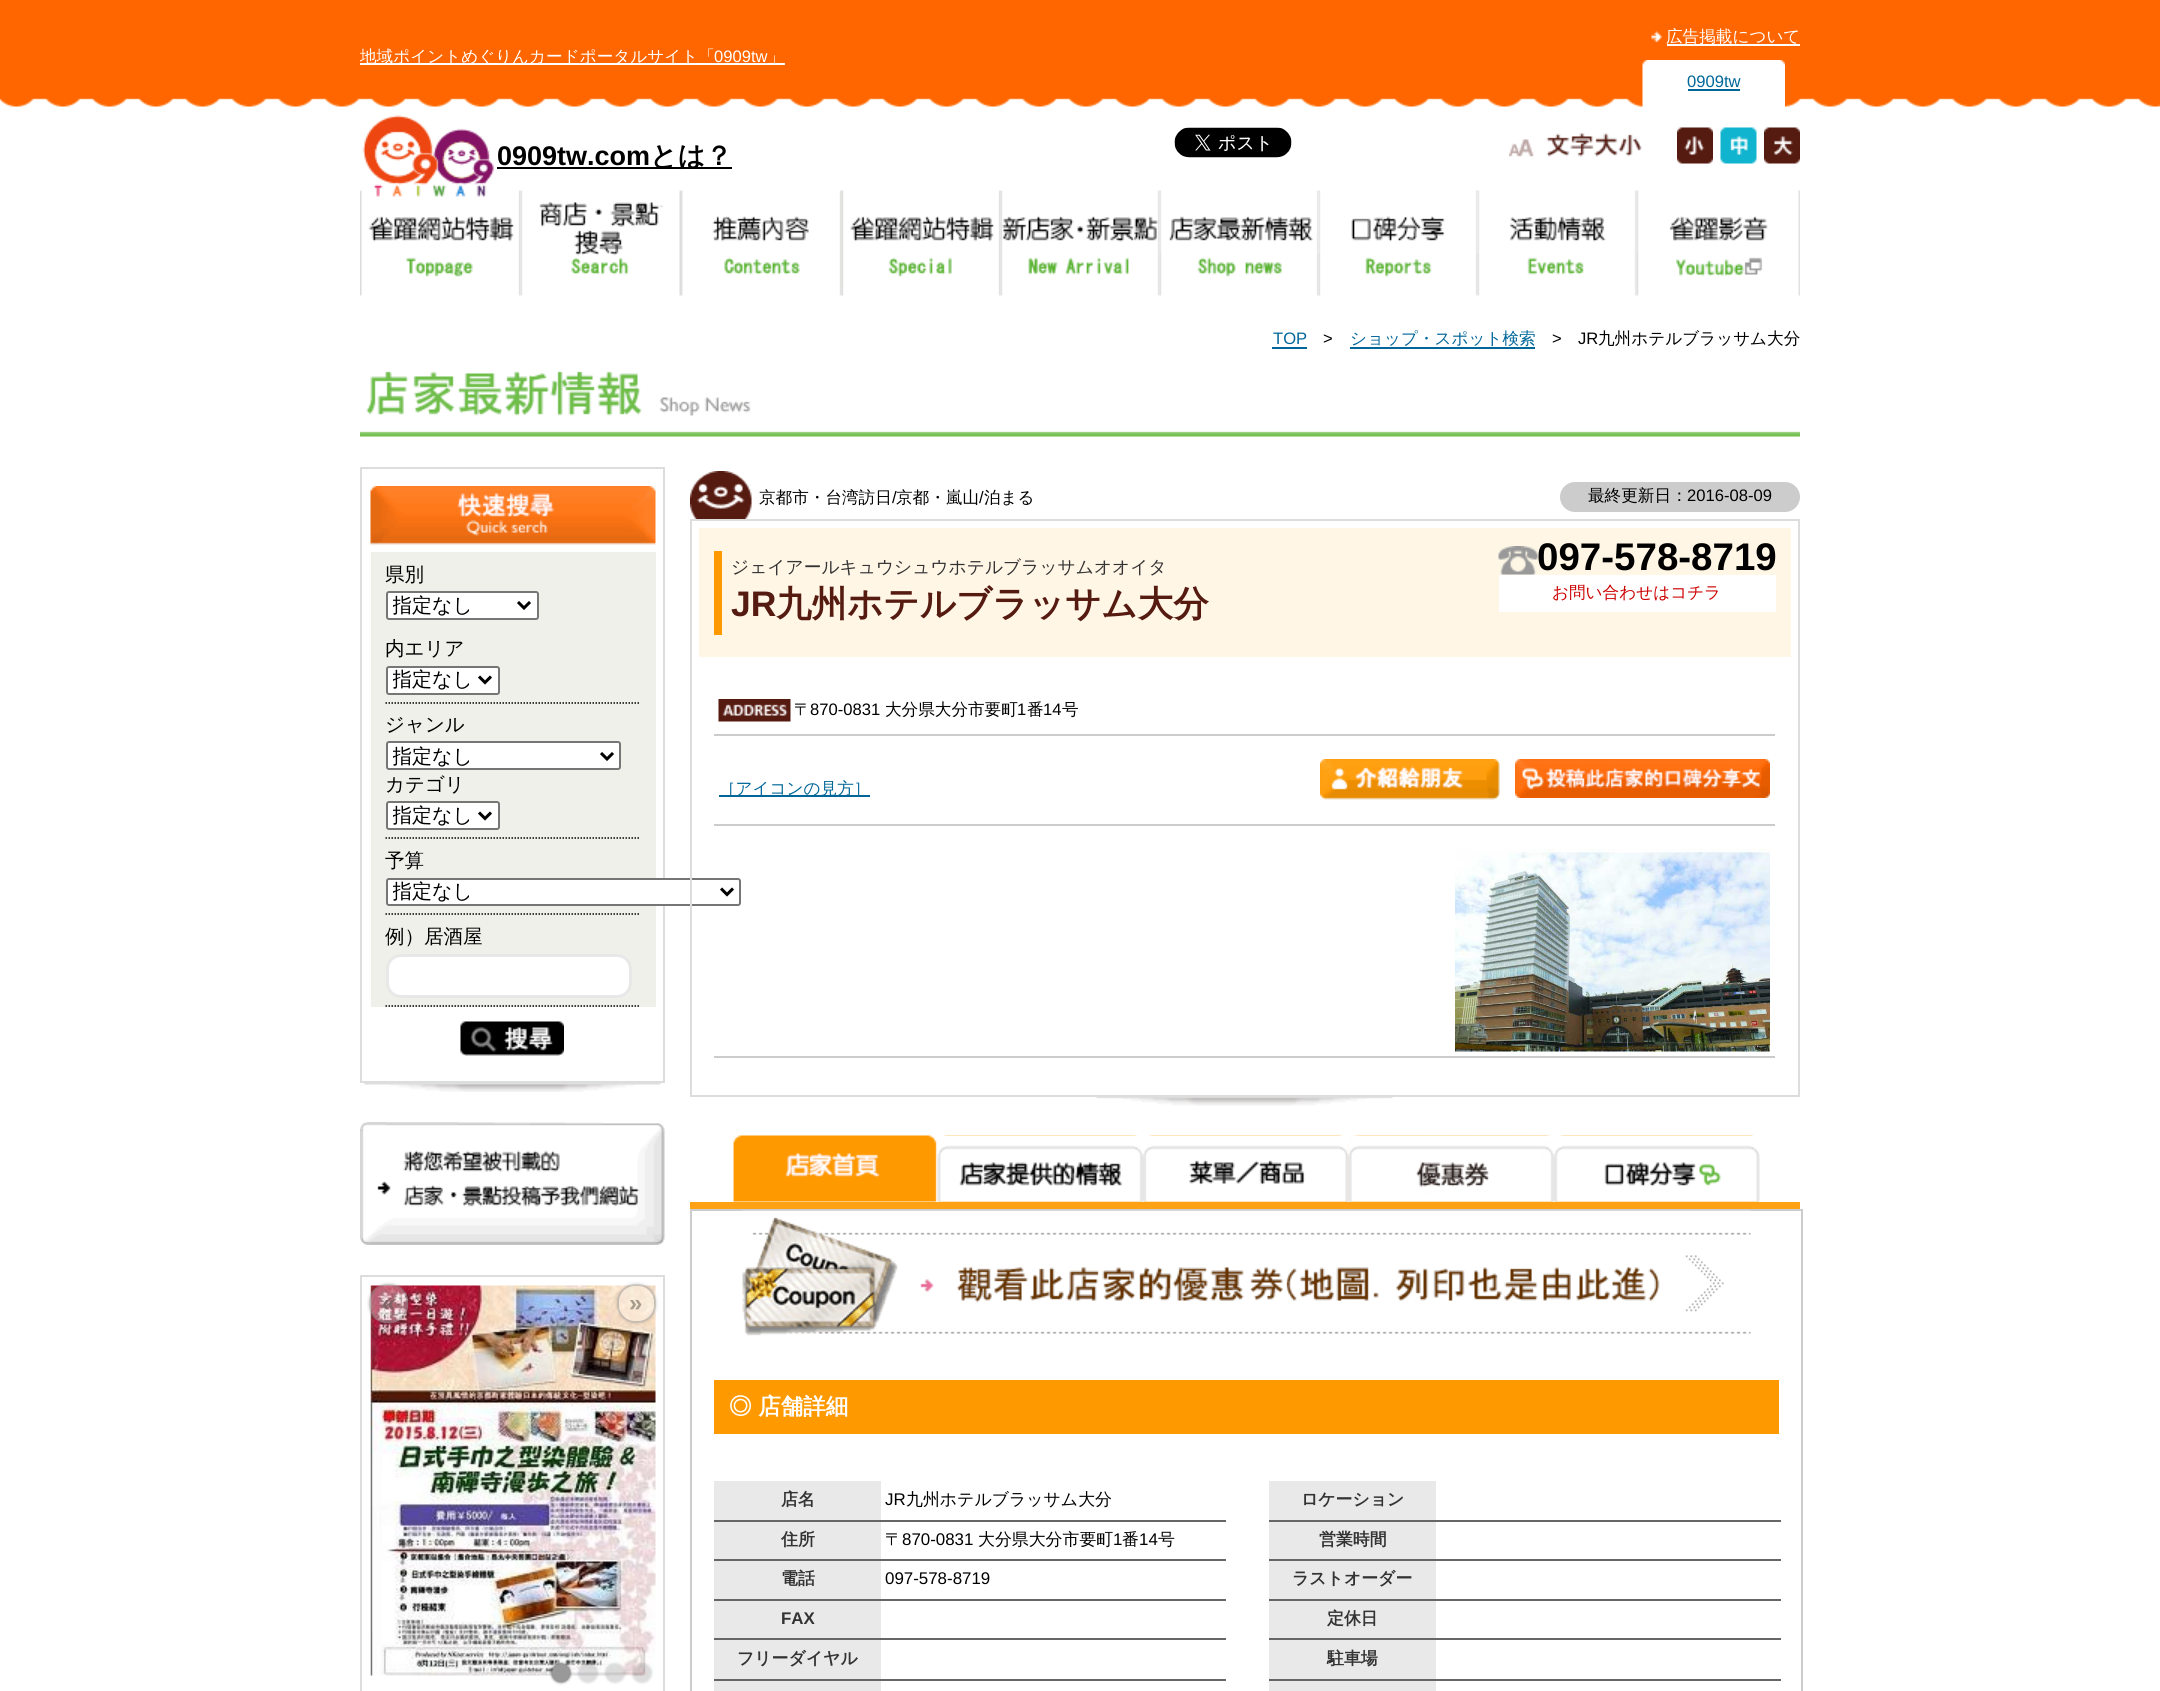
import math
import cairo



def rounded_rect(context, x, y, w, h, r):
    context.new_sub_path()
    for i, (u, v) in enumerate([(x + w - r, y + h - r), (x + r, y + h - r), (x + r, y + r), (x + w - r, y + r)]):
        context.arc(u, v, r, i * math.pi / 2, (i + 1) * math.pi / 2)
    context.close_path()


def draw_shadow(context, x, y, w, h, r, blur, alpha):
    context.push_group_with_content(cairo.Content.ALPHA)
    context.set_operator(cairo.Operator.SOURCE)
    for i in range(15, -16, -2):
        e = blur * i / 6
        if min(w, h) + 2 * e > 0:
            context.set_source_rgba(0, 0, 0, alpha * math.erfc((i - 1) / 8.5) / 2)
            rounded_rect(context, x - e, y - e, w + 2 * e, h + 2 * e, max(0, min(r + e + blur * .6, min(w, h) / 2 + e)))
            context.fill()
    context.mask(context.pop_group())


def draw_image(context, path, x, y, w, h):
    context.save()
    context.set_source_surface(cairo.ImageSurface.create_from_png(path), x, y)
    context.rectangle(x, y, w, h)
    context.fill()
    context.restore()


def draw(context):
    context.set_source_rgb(1, 1, 1)
    context.paint()
    draw_image(context, "images/1.png", 0, 0, 2160, 107)
    draw_image(context, "images/2.png", 1651, 31, 11, 11)
    context.set_source_rgb(1, 1, 1)
    context.rectangle(1667, 44, 133, 2)
    context.fill()
    context.rectangle(360, 63, 425, 2)
    context.fill()
    draw_image(context, "images/3.png", 1642, 60, 143, 47)
    context.set_source_rgb(0, 102 / 255, 153 / 255)
    context.rectangle(1688, 89, 52, 2)
    context.fill()
    draw_image(context, "images/10.png", 360, 190, 161, 106)
    draw_image(context, "images/4.png", 362, 115, 132, 82)
    context.set_source_rgb(0, 0, 0)
    context.rectangle(497, 167, 235, 2)
    context.fill()
    draw_image(context, "images/5.png", 1174, 127, 118, 31)
    draw_image(context, "images/6.png", 1509, 133, 133, 24)
    draw_image(context, "images/7.png", 1677, 127, 36, 37)
    draw_image(context, "images/8.png", 1720, 127, 37, 37)
    draw_image(context, "images/9.png", 1764, 127, 36, 37)
    draw_image(context, "images/11.png", 520, 190, 161, 106)
    draw_image(context, "images/12.png", 681, 190, 161, 106)
    draw_image(context, "images/13.png", 841, 190, 160, 106)
    draw_image(context, "images/14.png", 1000, 190, 160, 106)
    draw_image(context, "images/15.png", 1159, 190, 160, 106)
    draw_image(context, "images/16.png", 1318, 190, 160, 106)
    draw_image(context, "images/17.png", 1477, 190, 160, 106)
    draw_image(context, "images/18.png", 1636, 190, 164, 106)
    context.set_source_rgb(0, 102 / 255, 153 / 255)
    context.rectangle(1272, 347, 35, 2)
    context.fill()
    context.rectangle(1350, 347, 185, 2)
    context.fill()
    draw_image(context, "images/19.png", 360, 371, 1440, 66)
    context.rectangle(361, 468, 303, 614)
    context.set_source_rgb(220 / 255, 221 / 255, 221 / 255)
    context.stroke()
    draw_image(context, "images/20.png", 370, 486, 286, 59)
    context.set_source_rgb(240 / 255, 240 / 255, 234 / 255)
    context.rectangle(371, 552, 285, 455)
    context.fill()
    context.set_source_rgb(1, 1, 1)
    rounded_rect(context, 387, 592, 151, 27, 2)
    context.fill_preserve()
    context.set_source_rgb(118 / 255, 118 / 255, 118 / 255)
    context.stroke()
    context.new_path()
    context.move_to(518, 602)
    context.line_to(524, 608)
    context.line_to(530, 602)
    context.set_source_rgb(0, 0, 0)
    context.set_line_width(3)
    context.stroke()
    context.new_path()
    context.move_to(385.5, 703)
    context.line_to(640.5, 703)
    context.set_line_width(1.5)
    context.set_dash([1.5, 1.5])
    context.stroke()
    context.set_source_rgb(1, 1, 1)
    rounded_rect(context, 387, 667, 112, 27, 2)
    context.fill_preserve()
    context.set_source_rgb(118 / 255, 118 / 255, 118 / 255)
    context.set_line_width(2)
    context.set_dash([])
    context.stroke()
    context.new_path()
    context.move_to(479, 676.5)
    context.line_to(485, 682.5)
    context.line_to(491, 676.5)
    context.set_source_rgb(0, 0, 0)
    context.set_line_width(3)
    context.stroke()
    context.new_path()
    context.move_to(385.5, 838)
    context.line_to(640.5, 838)
    context.set_line_width(1.5)
    context.set_dash([1.5, 1.5])
    context.stroke()
    context.set_source_rgb(1, 1, 1)
    rounded_rect(context, 387, 742, 233, 27, 2)
    context.fill_preserve()
    context.set_source_rgb(118 / 255, 118 / 255, 118 / 255)
    context.set_line_width(2)
    context.set_dash([])
    context.stroke()
    context.new_path()
    context.move_to(601, 753)
    context.line_to(607, 759)
    context.line_to(613, 753)
    context.set_source_rgb(0, 0, 0)
    context.set_line_width(3)
    context.stroke()
    context.set_source_rgb(1, 1, 1)
    rounded_rect(context, 387, 802, 112, 27, 2)
    context.fill_preserve()
    context.set_source_rgb(118 / 255, 118 / 255, 118 / 255)
    context.set_line_width(2)
    context.stroke()
    context.new_path()
    context.move_to(479, 812.5)
    context.line_to(485, 818.5)
    context.line_to(491, 812.5)
    context.set_source_rgb(0, 0, 0)
    context.set_line_width(3)
    context.stroke()
    context.new_path()
    context.move_to(385.5, 914)
    context.line_to(640.5, 914)
    context.set_line_width(1.5)
    context.set_dash([1.5, 1.5])
    context.stroke()
    context.set_source_rgb(1, 1, 1)
    rounded_rect(context, 387, 879, 353, 26, 2)
    context.fill_preserve()
    context.set_source_rgb(118 / 255, 118 / 255, 118 / 255)
    context.set_line_width(2)
    context.set_dash([])
    context.stroke()
    context.new_path()
    context.move_to(721, 888.5)
    context.line_to(727, 894.5)
    context.line_to(733, 888.5)
    context.set_source_rgb(0, 0, 0)
    context.set_line_width(3)
    context.stroke()
    context.new_path()
    context.move_to(385.5, 1006)
    context.line_to(640.5, 1006)
    context.set_line_width(1.5)
    context.set_dash([1.5, 1.5])
    context.stroke()
    context.set_source_rgb(1, 1, 1)
    rounded_rect(context, 387.5, 955.5, 243, 41, 13.5)
    context.fill_preserve()
    context.set_source_rgb(232 / 255, 232 / 255, 232 / 255)
    context.set_line_width(3)
    context.set_dash([])
    context.stroke()
    draw_image(context, "images/21.png", 460, 1021, 104, 35)
    draw_image(context, "images/22.png", 364, 1083, 298, 9)
    draw_image(context, "images/23.png", 360, 1122, 305, 123)
    context.rectangle(361, 1276, 303, 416)
    context.set_source_rgb(220 / 255, 221 / 255, 221 / 255)
    context.set_line_width(2)
    context.stroke()
    draw_image(context, "images/24.png", 370, 1285, 286, 391)
    context.save()
    context.set_fill_rule(cairo.FillRule.EVEN_ODD)
    context.new_path()
    context.move_to(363, 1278)
    context.line_to(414, 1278)
    context.line_to(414, 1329)
    context.line_to(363, 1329)
    context.close_path()
    context.move_to(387, 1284)
    context.line_to(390, 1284)
    context.curve_to(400, 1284, 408, 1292, 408, 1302)
    context.line_to(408, 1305)
    context.curve_to(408, 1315, 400, 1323, 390, 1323)
    context.line_to(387, 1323)
    context.curve_to(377, 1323, 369, 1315, 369, 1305)
    context.line_to(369, 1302)
    context.curve_to(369, 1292, 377, 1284, 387, 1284)
    context.close_path()
    context.clip()
    context.set_source_rgb(102 / 255, 102 / 255, 102 / 255)
    draw_shadow(context, 369, 1284, 39, 39, 18, 1.5, 0.33)
    context.restore()
    context.set_source_rgba(1, 1, 1, 0.33)
    rounded_rect(context, 369, 1284, 39, 39, 18)
    context.fill()
    rounded_rect(context, 370, 1285, 37, 37, 17)
    context.set_source_rgba(102 / 255, 102 / 255, 102 / 255, 0.33)
    context.stroke()
    context.save()
    context.set_fill_rule(cairo.FillRule.EVEN_ODD)
    context.new_path()
    context.move_to(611, 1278)
    context.line_to(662, 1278)
    context.line_to(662, 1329)
    context.line_to(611, 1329)
    context.close_path()
    context.move_to(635, 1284)
    context.line_to(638, 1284)
    context.curve_to(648, 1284, 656, 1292, 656, 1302)
    context.line_to(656, 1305)
    context.curve_to(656, 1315, 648, 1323, 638, 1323)
    context.line_to(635, 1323)
    context.curve_to(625, 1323, 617, 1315, 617, 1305)
    context.line_to(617, 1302)
    context.curve_to(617, 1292, 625, 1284, 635, 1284)
    context.close_path()
    context.clip()
    context.set_source_rgb(102 / 255, 102 / 255, 102 / 255)
    draw_shadow(context, 617, 1284, 39, 39, 18, 1.5, 0.33)
    context.restore()
    context.set_source_rgba(1, 1, 1, 0.33)
    rounded_rect(context, 617, 1284, 39, 39, 18)
    context.fill()
    rounded_rect(context, 618, 1285, 37, 37, 17)
    context.set_source_rgba(102 / 255, 102 / 255, 102 / 255, 0.33)
    context.stroke()
    context.set_source_rgb(51 / 255, 51 / 255, 51 / 255)
    draw_shadow(context, 552, 1664, 18, 18, 9, 1.5, 1)
    context.set_source_rgb(153 / 255, 153 / 255, 153 / 255)
    context.arc(561, 1673, 9, 0, 2 * math.pi)
    context.fill()
    context.save()
    context.set_fill_rule(cairo.FillRule.EVEN_ODD)
    context.new_path()
    context.move_to(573, 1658)
    context.line_to(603, 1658)
    context.line_to(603, 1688)
    context.line_to(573, 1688)
    context.close_path()
    context.move_to(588, 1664)
    context.curve_to(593, 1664, 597, 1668, 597, 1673)
    context.curve_to(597, 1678, 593, 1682, 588, 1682)
    context.curve_to(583, 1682, 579, 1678, 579, 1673)
    context.curve_to(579, 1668, 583, 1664, 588, 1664)
    context.close_path()
    context.clip()
    context.set_source_rgb(51 / 255, 51 / 255, 51 / 255)
    draw_shadow(context, 579, 1664, 18, 18, 9, 1.5, 0.33)
    context.restore()
    context.set_source_rgba(153 / 255, 153 / 255, 153 / 255, 0.33)
    context.arc(588, 1673, 9, 0, 2 * math.pi)
    context.fill()
    context.save()
    context.set_fill_rule(cairo.FillRule.EVEN_ODD)
    context.new_path()
    context.move_to(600, 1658)
    context.line_to(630, 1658)
    context.line_to(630, 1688)
    context.line_to(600, 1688)
    context.close_path()
    context.move_to(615, 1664)
    context.curve_to(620, 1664, 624, 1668, 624, 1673)
    context.curve_to(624, 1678, 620, 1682, 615, 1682)
    context.curve_to(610, 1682, 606, 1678, 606, 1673)
    context.curve_to(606, 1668, 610, 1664, 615, 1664)
    context.close_path()
    context.clip()
    context.set_source_rgb(51 / 255, 51 / 255, 51 / 255)
    draw_shadow(context, 606, 1664, 18, 18, 9, 1.5, 0.33)
    context.restore()
    context.arc(615, 1673, 9, 0, 2 * math.pi)
    context.fill()
    context.save()
    context.set_fill_rule(cairo.FillRule.EVEN_ODD)
    context.new_path()
    context.move_to(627, 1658)
    context.line_to(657, 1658)
    context.line_to(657, 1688)
    context.line_to(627, 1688)
    context.close_path()
    context.move_to(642, 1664)
    context.curve_to(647, 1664, 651, 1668, 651, 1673)
    context.curve_to(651, 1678, 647, 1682, 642, 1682)
    context.curve_to(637, 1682, 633, 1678, 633, 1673)
    context.curve_to(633, 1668, 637, 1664, 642, 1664)
    context.close_path()
    context.clip()
    context.set_source_rgb(51 / 255, 51 / 255, 51 / 255)
    draw_shadow(context, 633, 1664, 18, 18, 9, 1.5, 0.33)
    context.restore()
    context.arc(642, 1673, 9, 0, 2 * math.pi)
    context.fill()
    draw_image(context, "images/25.png", 690, 471, 62, 48)
    context.set_source_rgb(204 / 255, 204 / 255, 204 / 255)
    rounded_rect(context, 1560, 482, 240, 30, 15)
    context.fill()
    context.rectangle(691, 520, 1108, 576)
    context.set_source_rgb(220 / 255, 221 / 255, 221 / 255)
    context.stroke()
    context.set_source_rgb(1, 246 / 255, 230 / 255)
    context.rectangle(699, 528, 1092, 129)
    context.fill()
    context.set_source_rgb(1, 153 / 255, 0)
    context.rectangle(714, 551, 8, 84)
    context.fill()
    draw_image(context, "images/26.png", 1498, 546, 40, 29)
    context.set_source_rgb(1, 1, 1)
    context.rectangle(1499, 575, 277, 37)
    context.fill()
    context.set_source_rgb(204 / 255, 204 / 255, 204 / 255)
    context.rectangle(714, 734, 1061, 2)
    context.fill()
    draw_image(context, "images/27.png", 718, 699, 73, 23)
    context.rectangle(714, 824, 1061, 2)
    context.fill()
    context.set_source_rgb(0, 102 / 255, 153 / 255)
    context.rectangle(719, 795, 151, 2)
    context.fill()
    draw_image(context, "images/28.png", 1320, 759, 180, 41)
    draw_image(context, "images/29.png", 1515, 759, 255, 39)
    context.set_source_rgb(204 / 255, 204 / 255, 204 / 255)
    context.rectangle(714, 1056, 1061, 2)
    context.fill()
    draw_image(context, "images/30.png", 1455, 849, 315, 203)
    draw_image(context, "images/31.png", 1096, 1097, 298, 9)
    draw_image(context, "images/32.png", 733, 1135, 1026, 67)
    context.set_source_rgb(1, 161 / 255, 21 / 255)
    context.rectangle(690, 1202, 1110, 7)
    context.fill()
    draw_image(context, "images/33.png", 937, 1135, 206, 67)
    draw_image(context, "images/34.png", 1143, 1135, 206, 67)
    draw_image(context, "images/35.png", 1348, 1135, 206, 67)
    draw_image(context, "images/36.png", 1554, 1135, 206, 67)
    context.rectangle(691, 1210, 1111, 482)
    context.set_source_rgb(204 / 255, 204 / 255, 204 / 255)
    context.stroke()
    draw_image(context, "images/37.png", 742, 1210, 1009, 126)
    context.set_source_rgb(1, 153 / 255, 0)
    context.rectangle(714, 1380, 1065, 54)
    context.fill()
    context.set_source_rgb(233 / 255, 233 / 255, 233 / 255)
    context.rectangle(714, 1481, 167, 39)
    context.fill()
    context.set_source_rgb(102 / 255, 102 / 255, 102 / 255)
    context.rectangle(714, 1520, 512, 2)
    context.fill()
    context.set_source_rgb(233 / 255, 233 / 255, 233 / 255)
    context.rectangle(714, 1522, 167, 37)
    context.fill()
    context.set_source_rgb(102 / 255, 102 / 255, 102 / 255)
    context.rectangle(714, 1559, 512, 2)
    context.fill()
    context.set_source_rgb(233 / 255, 233 / 255, 233 / 255)
    context.rectangle(714, 1561, 167, 38)
    context.fill()
    context.set_source_rgb(102 / 255, 102 / 255, 102 / 255)
    context.rectangle(714, 1599, 512, 2)
    context.fill()
    context.set_source_rgb(233 / 255, 233 / 255, 233 / 255)
    context.rectangle(714, 1601, 167, 37)
    context.fill()
    context.set_source_rgb(102 / 255, 102 / 255, 102 / 255)
    context.rectangle(714, 1638, 512, 2)
    context.fill()
    context.set_source_rgb(233 / 255, 233 / 255, 233 / 255)
    context.rectangle(714, 1640, 167, 39)
    context.fill()
    context.set_source_rgb(102 / 255, 102 / 255, 102 / 255)
    context.rectangle(714, 1679, 512, 2)
    context.fill()
    context.set_source_rgb(233 / 255, 233 / 255, 233 / 255)
    context.rectangle(714, 1681, 167, 10)
    context.fill()
    context.rectangle(1269, 1481, 167, 39)
    context.fill()
    context.set_source_rgb(102 / 255, 102 / 255, 102 / 255)
    context.rectangle(1269, 1520, 512, 2)
    context.fill()
    context.set_source_rgb(233 / 255, 233 / 255, 233 / 255)
    context.rectangle(1269, 1522, 167, 37)
    context.fill()
    context.set_source_rgb(102 / 255, 102 / 255, 102 / 255)
    context.rectangle(1269, 1559, 512, 2)
    context.fill()
    context.set_source_rgb(233 / 255, 233 / 255, 233 / 255)
    context.rectangle(1269, 1561, 167, 38)
    context.fill()
    context.set_source_rgb(102 / 255, 102 / 255, 102 / 255)
    context.rectangle(1269, 1599, 512, 2)
    context.fill()
    context.set_source_rgb(233 / 255, 233 / 255, 233 / 255)
    context.rectangle(1269, 1601, 167, 37)
    context.fill()
    context.set_source_rgb(102 / 255, 102 / 255, 102 / 255)
    context.rectangle(1269, 1638, 512, 2)
    context.fill()
    context.set_source_rgb(233 / 255, 233 / 255, 233 / 255)
    context.rectangle(1269, 1640, 167, 39)
    context.fill()
    context.set_source_rgb(102 / 255, 102 / 255, 102 / 255)
    context.rectangle(1269, 1679, 512, 2)
    context.fill()
    context.set_source_rgb(233 / 255, 233 / 255, 233 / 255)
    context.rectangle(1269, 1681, 167, 10)
    context.fill()
    context.select_font_face("WenQuanYi Zen Hei Medium")
    context.set_font_size(16.6)
    context.set_source_rgb(1, 1, 1)
    context.move_to(1666, 42)
    context.show_text("広告掲載について")
    context.move_to(360, 62)
    context.show_text("地域ポイントめぐりんカードポータルサイト「")
    context.select_font_face("Liberation Sans")
    context.move_to(714, 62)
    context.show_text("0909tw")
    context.select_font_face("WenQuanYi Zen Hei Medium")
    context.move_to(768, 62)
    context.show_text("」")
    context.select_font_face("Liberation Sans")
    context.set_source_rgb(0, 102 / 255, 153 / 255)
    context.move_to(1687, 87)
    context.show_text("0909tw")
    context.select_font_face("Liberation Sans", cairo.FontSlant.NORMAL, cairo.FontWeight.BOLD)
    context.set_font_size(27)
    context.set_source_rgb(0, 0, 0)
    context.move_to(497, 165)
    context.show_text("0909tw.com")
    context.select_font_face("WenQuanYi Zen Hei", cairo.FontSlant.NORMAL, cairo.FontWeight.BOLD)
    context.move_to(650, 165)
    context.show_text("とは？")
    context.select_font_face("Liberation Sans")
    context.set_font_size(16.6)
    context.set_source_rgb(0, 102 / 255, 153 / 255)
    context.move_to(1273, 344)
    context.show_text("TOP")
    context.set_source_rgb(0, 0, 0)
    context.move_to(1323, 344)
    context.show_text(">")
    context.select_font_face("WenQuanYi Zen Hei Medium")
    context.set_source_rgb(0, 102 / 255, 153 / 255)
    context.move_to(1350, 344)
    context.show_text("ショップ・スポット検索")
    context.select_font_face("Liberation Sans")
    context.set_source_rgb(0, 0, 0)
    context.move_to(1552, 344)
    context.show_text(">")
    context.move_to(1578, 344)
    context.show_text("JR")
    context.select_font_face("WenQuanYi Zen Hei Medium")
    context.move_to(1598, 344)
    context.show_text("九州ホテルブラッサム大分")
    context.set_font_size(19.5)
    context.move_to(385, 581)
    context.show_text("県別")
    context.save()
    context.rectangle(393, 593, 120, 25)
    context.clip()
    context.set_font_size(20)
    context.move_to(392, 612)
    context.show_text("指定なし")
    context.restore()
    context.move_to(385, 655)
    context.show_text("内エリア")
    context.save()
    context.rectangle(393, 668, 81, 25)
    context.clip()
    context.set_font_size(20)
    context.move_to(392, 686)
    context.show_text("指定なし")
    context.restore()
    context.move_to(385, 731)
    context.show_text("ジャンル")
    context.save()
    context.rectangle(393, 743, 203, 25)
    context.clip()
    context.set_font_size(20)
    context.move_to(392, 763)
    context.show_text("指定なし")
    context.restore()
    context.move_to(385, 791)
    context.show_text("カテゴリ")
    context.save()
    context.rectangle(393, 803, 81, 25)
    context.clip()
    context.set_font_size(20)
    context.move_to(392, 822)
    context.show_text("指定なし")
    context.restore()
    context.move_to(385, 867)
    context.show_text("予算")
    context.save()
    context.rectangle(393, 879, 323, 26)
    context.clip()
    context.set_font_size(20)
    context.move_to(392, 898)
    context.show_text("指定なし")
    context.restore()
    context.move_to(385, 943)
    context.show_text("例）居酒屋")
    context.select_font_face("Liberation Sans", cairo.FontSlant.NORMAL, cairo.FontWeight.BOLD)
    context.set_font_size(24)
    context.set_source_rgb(128 / 255, 97 / 255, 102 / 255)
    context.move_to(382, 1311)
    context.show_text("«")
    context.set_source_rgb(166 / 255, 156 / 255, 142 / 255)
    context.move_to(629, 1311)
    context.show_text("»")
    context.select_font_face("WenQuanYi Zen Hei Medium")
    context.set_font_size(16.6)
    context.set_source_rgb(0, 0, 0)
    context.move_to(759, 503)
    context.show_text("京都市・台湾訪日")
    context.select_font_face("Liberation Sans")
    context.move_to(892, 503)
    context.show_text("/")
    context.select_font_face("WenQuanYi Zen Hei Medium")
    context.move_to(896, 503)
    context.show_text("京都・嵐山")
    context.select_font_face("Liberation Sans")
    context.move_to(979, 503)
    context.show_text("/")
    context.select_font_face("WenQuanYi Zen Hei Medium")
    context.move_to(984, 503)
    context.show_text("泊まる")
    context.move_to(1588, 501)
    context.show_text("最終更新日：")
    context.select_font_face("Liberation Sans")
    context.move_to(1687, 501)
    context.show_text("2016-08-09")
    context.select_font_face("WenQuanYi Zen Hei Medium")
    context.set_font_size(17.75)
    context.set_source_rgb(51 / 255, 51 / 255, 51 / 255)
    context.move_to(731, 573)
    context.show_text("ジェイアールキュウシュウホテルブラッサムオオイタ")
    context.select_font_face("Liberation Sans", cairo.FontSlant.NORMAL, cairo.FontWeight.BOLD)
    context.set_font_size(35.5)
    context.set_source_rgb(85 / 255, 26 / 255, 16 / 255)
    context.move_to(731, 616)
    context.show_text("JR")
    context.select_font_face("WenQuanYi Zen Hei", cairo.FontSlant.NORMAL, cairo.FontWeight.BOLD)
    context.move_to(776, 616)
    context.show_text("九州ホテルブラッサム大分")
    context.select_font_face("Liberation Sans", cairo.FontSlant.NORMAL, cairo.FontWeight.BOLD)
    context.set_font_size(38.5)
    context.set_source_rgb(0, 0, 0)
    context.move_to(1537, 570)
    context.show_text("097-578-8719")
    context.select_font_face("WenQuanYi Zen Hei Medium")
    context.set_font_size(16.6)
    context.set_source_rgb(204 / 255, 0, 0)
    context.move_to(1552, 598)
    context.show_text("お問い合わせはコチラ")
    context.set_source_rgb(0, 0, 0)
    context.move_to(794, 715)
    context.show_text("〒")
    context.select_font_face("Liberation Sans")
    context.move_to(810, 715)
    context.show_text("870-0831")
    context.select_font_face("WenQuanYi Zen Hei Medium")
    context.move_to(885, 715)
    context.show_text("大分県大分市要町")
    context.select_font_face("Liberation Sans")
    context.move_to(1017, 715)
    context.show_text("1")
    context.select_font_face("WenQuanYi Zen Hei Medium")
    context.move_to(1027, 715)
    context.show_text("番")
    context.select_font_face("Liberation Sans")
    context.move_to(1043, 715)
    context.show_text("14")
    context.select_font_face("WenQuanYi Zen Hei Medium")
    context.move_to(1062, 715)
    context.show_text("号")
    context.set_source_rgb(0, 102 / 255, 153 / 255)
    context.move_to(719, 794)
    context.show_text("［アイコンの見方］")
    context.select_font_face("WenQuanYi Zen Hei", cairo.FontSlant.NORMAL, cairo.FontWeight.BOLD)
    context.set_font_size(22.5)
    context.set_source_rgb(1, 1, 1)
    context.move_to(729, 1414)
    context.show_text("◎ 店舗詳細")
    context.set_font_size(16.9)
    context.set_source_rgb(51 / 255, 51 / 255, 51 / 255)
    context.move_to(781, 1505)
    context.show_text("店名")
    context.select_font_face("Liberation Sans")
    context.set_source_rgb(0, 0, 0)
    context.move_to(885, 1505)
    context.show_text("JR")
    context.select_font_face("WenQuanYi Zen Hei Medium")
    context.move_to(906, 1505)
    context.show_text("九州ホテルブラッサム大分")
    context.select_font_face("WenQuanYi Zen Hei", cairo.FontSlant.NORMAL, cairo.FontWeight.BOLD)
    context.set_source_rgb(51 / 255, 51 / 255, 51 / 255)
    context.move_to(781, 1545)
    context.show_text("住所")
    context.select_font_face("WenQuanYi Zen Hei Medium")
    context.set_source_rgb(0, 0, 0)
    context.move_to(885, 1545)
    context.show_text("〒")
    context.select_font_face("Liberation Sans")
    context.move_to(902, 1545)
    context.show_text("870-0831")
    context.select_font_face("WenQuanYi Zen Hei Medium")
    context.move_to(978, 1545)
    context.show_text("大分県大分市要町")
    context.select_font_face("Liberation Sans")
    context.move_to(1113, 1545)
    context.show_text("1")
    context.select_font_face("WenQuanYi Zen Hei Medium")
    context.move_to(1122, 1545)
    context.show_text("番")
    context.select_font_face("Liberation Sans")
    context.move_to(1139, 1545)
    context.show_text("14")
    context.select_font_face("WenQuanYi Zen Hei Medium")
    context.move_to(1158, 1545)
    context.show_text("号")
    context.select_font_face("WenQuanYi Zen Hei", cairo.FontSlant.NORMAL, cairo.FontWeight.BOLD)
    context.set_source_rgb(51 / 255, 51 / 255, 51 / 255)
    context.move_to(781, 1584)
    context.show_text("電話")
    context.select_font_face("Liberation Sans")
    context.set_source_rgb(0, 0, 0)
    context.move_to(885, 1584)
    context.show_text("097-578-8719")
    context.select_font_face("Liberation Sans", cairo.FontSlant.NORMAL, cairo.FontWeight.BOLD)
    context.set_source_rgb(51 / 255, 51 / 255, 51 / 255)
    context.move_to(781, 1624)
    context.show_text("FAX")
    context.select_font_face("WenQuanYi Zen Hei", cairo.FontSlant.NORMAL, cairo.FontWeight.BOLD)
    context.move_to(737, 1664)
    context.show_text("フリーダイヤル")
    context.move_to(1301, 1505)
    context.show_text("ロケーション")
    context.move_to(1319, 1545)
    context.show_text("営業時間")
    context.move_to(1292, 1584)
    context.show_text("ラストオーダー")
    context.move_to(1327, 1624)
    context.show_text("定休日")
    context.move_to(1327, 1664)
    context.show_text("駐車場")


surface = cairo.ImageSurface(cairo.Format.RGB24, 2160, 1691)
context = cairo.Context(surface)
options = cairo.FontOptions()
options.set_hint_metrics(cairo.HintMetrics.OFF)
options.set_hint_style(cairo.HintStyle.NONE)
context.set_font_options(options)
context.set_miter_limit(4)
draw(context)
surface.write_to_png("out.png")
